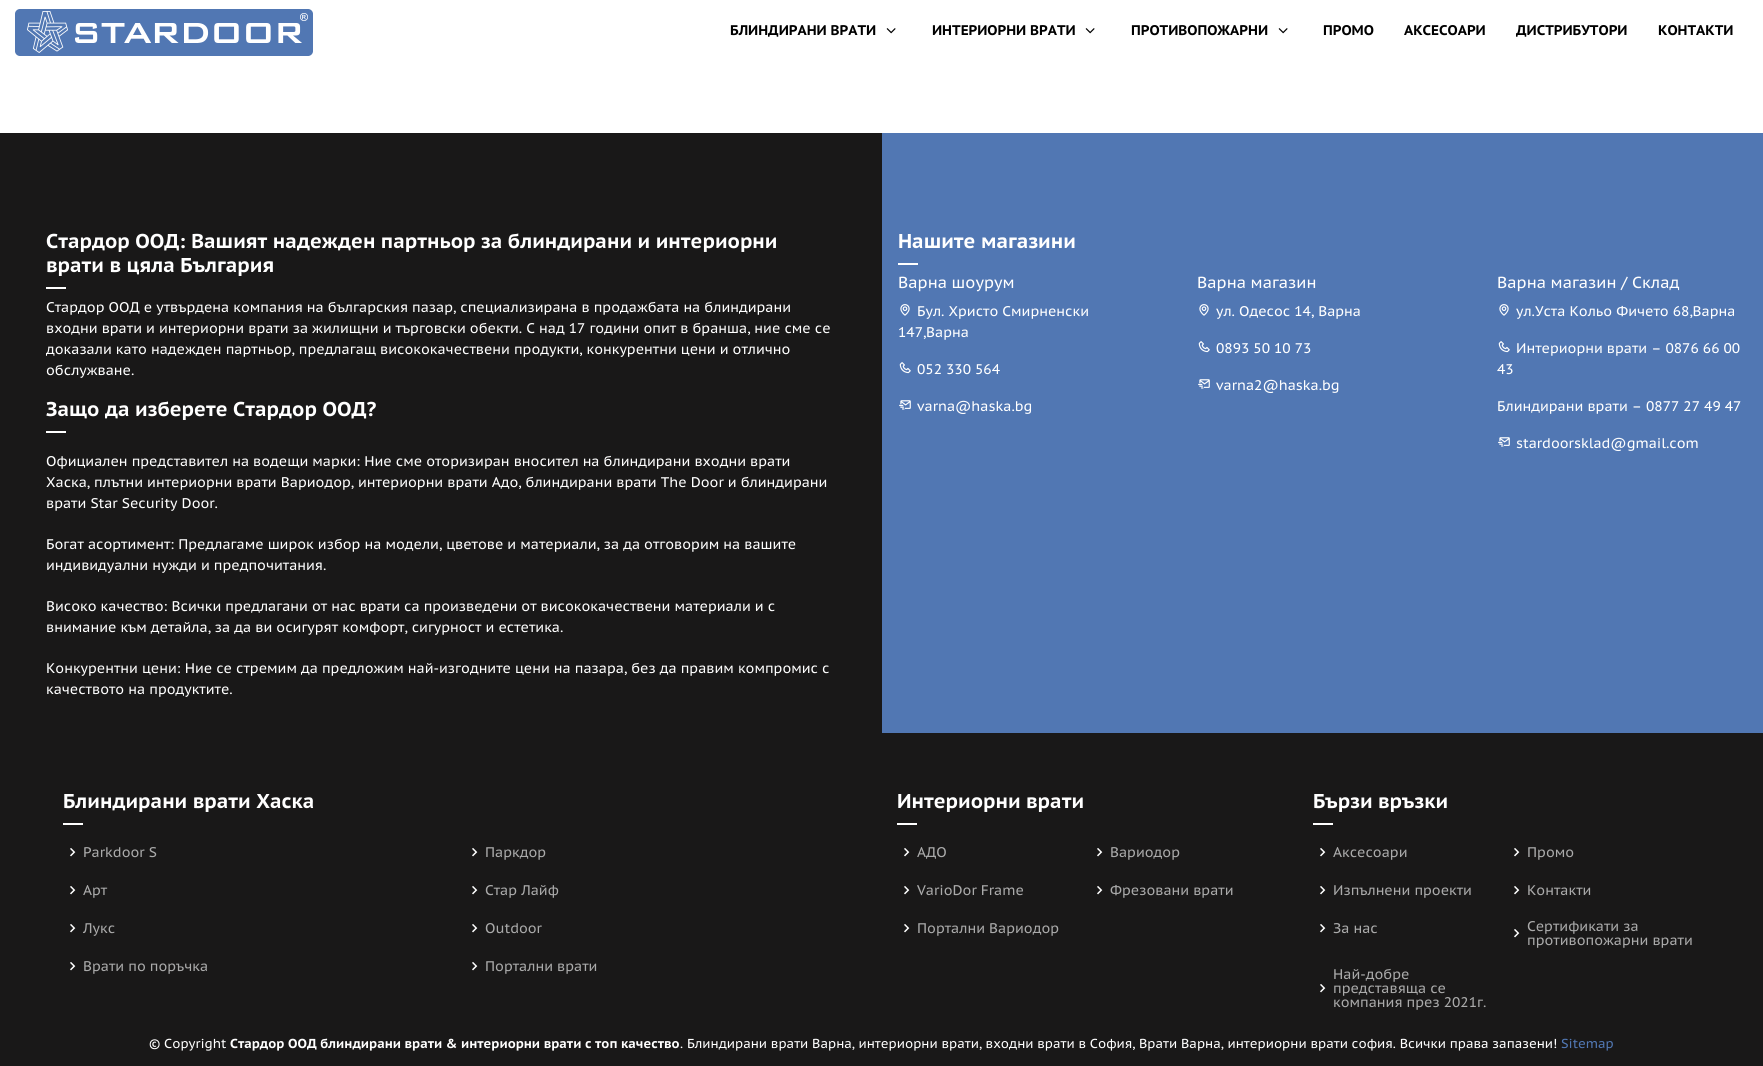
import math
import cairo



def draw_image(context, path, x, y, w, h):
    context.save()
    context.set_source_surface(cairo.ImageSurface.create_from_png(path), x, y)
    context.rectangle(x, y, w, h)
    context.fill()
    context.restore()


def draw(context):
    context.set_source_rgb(1, 1, 1)
    context.paint()
    draw_image(context, "images/1.png", 15, 9, 298, 47)
    draw_image(context, "images/2.png", 886, 28, 10, 6)
    draw_image(context, "images/2.png", 1085, 28, 10, 6)
    draw_image(context, "images/2.png", 1278, 28, 10, 6)
    context.set_source_rgb(25 / 255, 24 / 255, 24 / 255)
    context.rectangle(0, 133, 1763, 933)
    context.fill()
    context.set_source_rgb(1, 1, 1)
    context.rectangle(46, 287, 20, 2)
    context.fill()
    context.rectangle(46, 431, 20, 2)
    context.fill()
    context.set_source_rgb(81 / 255, 119 / 255, 179 / 255)
    context.rectangle(882, 133, 881, 600)
    context.fill()
    context.set_source_rgb(1, 1, 1)
    context.rectangle(898, 263, 20, 2)
    context.fill()
    draw_image(context, "images/3.png", 900, 304, 10, 12)
    draw_image(context, "images/4.png", 899, 362, 12, 12)
    draw_image(context, "images/5.png", 899, 400, 12, 10)
    draw_image(context, "images/3.png", 1199, 304, 10, 12)
    draw_image(context, "images/4.png", 1198, 341, 12, 12)
    draw_image(context, "images/5.png", 1198, 379, 12, 10)
    draw_image(context, "images/3.png", 1499, 304, 10, 12)
    draw_image(context, "images/4.png", 1498, 341, 12, 12)
    draw_image(context, "images/5.png", 1498, 437, 12, 10)
    context.rectangle(63, 823, 20, 2)
    context.fill()
    draw_image(context, "images/6.png", 70, 848, 6, 9)
    draw_image(context, "images/6.png", 472, 848, 6, 9)
    draw_image(context, "images/6.png", 70, 886, 6, 9)
    draw_image(context, "images/6.png", 472, 886, 6, 9)
    draw_image(context, "images/6.png", 70, 924, 6, 9)
    draw_image(context, "images/6.png", 472, 924, 6, 9)
    draw_image(context, "images/6.png", 70, 962, 6, 9)
    draw_image(context, "images/6.png", 472, 962, 6, 9)
    context.rectangle(897, 823, 20, 2)
    context.fill()
    draw_image(context, "images/6.png", 904, 848, 6, 9)
    draw_image(context, "images/6.png", 1097, 848, 6, 9)
    draw_image(context, "images/6.png", 904, 886, 6, 9)
    draw_image(context, "images/6.png", 1097, 886, 6, 9)
    draw_image(context, "images/6.png", 904, 924, 6, 9)
    context.rectangle(1313, 823, 20, 2)
    context.fill()
    draw_image(context, "images/6.png", 1320, 848, 6, 9)
    draw_image(context, "images/6.png", 1514, 848, 6, 9)
    draw_image(context, "images/6.png", 1320, 886, 6, 9)
    draw_image(context, "images/6.png", 1514, 886, 6, 9)
    draw_image(context, "images/6.png", 1320, 924, 6, 9)
    draw_image(context, "images/6.png", 1514, 929, 6, 9)
    draw_image(context, "images/6.png", 1320, 984, 6, 9)
    context.select_font_face("PT Sans Caption", cairo.FontSlant.NORMAL, cairo.FontWeight.BOLD)
    context.set_font_size(14)
    context.set_source_rgb(0, 0, 0)
    context.move_to(730, 35)
    context.show_text("БЛИНДИРАНИ ВРАТИ")
    context.move_to(932, 35)
    context.show_text("ИНТЕРИОРНИ ВРАТИ")
    context.move_to(1131, 35)
    context.show_text("ПРОТИВОПОЖАРНИ")
    context.move_to(1323, 35)
    context.show_text("ПРОМО")
    context.move_to(1404, 35)
    context.show_text("АКСЕСОАРИ")
    context.move_to(1516, 35)
    context.show_text("ДИСТРИБУТОРИ")
    context.move_to(1658, 35)
    context.show_text("КОНТАКТИ")
    context.set_font_size(20)
    context.set_source_rgb(1, 1, 1)
    context.move_to(46, 248)
    context.show_text("Стардор ООД: Вашият надежден партньор за блиндирани и интериорни")
    context.move_to(46, 272)
    context.show_text("врати в цяла България")
    context.select_font_face("PT Sans Caption")
    context.set_font_size(14)
    context.move_to(46, 312)
    context.show_text("Стардор ООД е утвърдена компания на българския пазар, специализирана в продажбата на блиндирани")
    context.move_to(46, 333)
    context.show_text("входни врати и интериорни врати за жилищни и търговски обекти. С над 17 години опит в бранша, ние сме се")
    context.move_to(46, 354)
    context.show_text("доказали като надежден партньор, предлагащ висококачествени продукти, конкурентни цени и отлично")
    context.move_to(46, 375)
    context.show_text("обслужване.")
    context.select_font_face("PT Sans Caption", cairo.FontSlant.NORMAL, cairo.FontWeight.BOLD)
    context.set_font_size(20)
    context.move_to(46, 416)
    context.show_text("Защо да изберете Стардор ООД?")
    context.select_font_face("PT Sans Caption")
    context.set_font_size(14)
    context.move_to(46, 466)
    context.show_text("Официален представител на водещи марки: Ние сме оторизиран вносител на блиндирани входни врати")
    context.move_to(46, 487)
    context.show_text("Хаска, плътни интериорни врати Вариодор, интериорни врати Адо, блиндирани врати The Door и блиндирани")
    context.move_to(46, 508)
    context.show_text("врати Star Security Door.")
    context.move_to(46, 549)
    context.show_text("Богат асортимент: Предлагаме широк избор на модели, цветове и материали, за да отговорим на вашите")
    context.move_to(46, 570)
    context.show_text("индивидуални нужди и предпочитания.")
    context.move_to(46, 611)
    context.show_text("Високо качество: Всички предлагани от нас врати са произведени от висококачествени материали и с")
    context.move_to(46, 632)
    context.show_text("внимание към детайла, за да ви осигурят комфорт, сигурност и естетика.")
    context.move_to(46, 673)
    context.show_text("Конкурентни цени: Ние се стремим да предложим най-изгодните цени на пазара, без да правим компромис с")
    context.move_to(46, 694)
    context.show_text("качеството на продуктите.")
    context.select_font_face("PT Sans Caption", cairo.FontSlant.NORMAL, cairo.FontWeight.BOLD)
    context.set_font_size(20)
    context.move_to(898, 248)
    context.show_text("Нашите магазини")
    context.select_font_face("PT Sans Caption")
    context.set_font_size(16)
    context.move_to(898, 288)
    context.show_text("Варна шоурум")
    context.set_font_size(14)
    context.move_to(917, 316)
    context.show_text("Бул. Христо Смирненски")
    context.move_to(898, 337)
    context.show_text("147,Варна")
    context.move_to(917, 374)
    context.show_text("052 330 564")
    context.move_to(917, 411)
    context.show_text("varna@haska.bg")
    context.set_font_size(16)
    context.move_to(1197, 288)
    context.show_text("Варна магазин")
    context.set_font_size(14)
    context.move_to(1216, 316)
    context.show_text("ул. Одесос 14, Варна")
    context.move_to(1216, 353)
    context.show_text("0893 50 10 73")
    context.move_to(1216, 390)
    context.show_text("varna2@haska.bg")
    context.set_font_size(16)
    context.move_to(1497, 288)
    context.show_text("Варна магазин / Склад")
    context.set_font_size(14)
    context.move_to(1516, 316)
    context.show_text("ул.Уста Кольо Фичето 68,Варна")
    context.move_to(1516, 353)
    context.show_text("Интериорни врати – 0876 66 00")
    context.move_to(1497, 374)
    context.show_text("43")
    context.move_to(1497, 411)
    context.show_text("Блиндирани врати – 0877 27 49 47")
    context.move_to(1516, 448)
    context.show_text("stardoorsklad@gmail.com")
    context.select_font_face("PT Sans Caption", cairo.FontSlant.NORMAL, cairo.FontWeight.BOLD)
    context.set_font_size(20)
    context.move_to(63, 808)
    context.show_text("Блиндирани врати Хаска")
    context.select_font_face("PT Sans Caption")
    context.set_font_size(14)
    context.set_source_rgb(170 / 255, 170 / 255, 170 / 255)
    context.move_to(83, 857)
    context.show_text("Parkdoor S")
    context.move_to(485, 857)
    context.show_text("Паркдор")
    context.move_to(83, 895)
    context.show_text("Арт")
    context.move_to(485, 895)
    context.show_text("Стар Лайф")
    context.move_to(83, 933)
    context.show_text("Лукс")
    context.move_to(485, 933)
    context.show_text("Outdoor")
    context.move_to(83, 971)
    context.show_text("Врати по поръчка")
    context.move_to(485, 971)
    context.show_text("Портални врати")
    context.select_font_face("PT Sans Caption", cairo.FontSlant.NORMAL, cairo.FontWeight.BOLD)
    context.set_font_size(20)
    context.set_source_rgb(1, 1, 1)
    context.move_to(897, 808)
    context.show_text("Интериорни врати")
    context.select_font_face("PT Sans Caption")
    context.set_font_size(14)
    context.set_source_rgb(170 / 255, 170 / 255, 170 / 255)
    context.move_to(917, 857)
    context.show_text("АДО")
    context.move_to(1110, 857)
    context.show_text("Вариодор")
    context.move_to(917, 895)
    context.show_text("VarioDor Frame")
    context.move_to(1110, 895)
    context.show_text("Фрезовани врати")
    context.move_to(917, 933)
    context.show_text("Портални Вариодор")
    context.select_font_face("PT Sans Caption", cairo.FontSlant.NORMAL, cairo.FontWeight.BOLD)
    context.set_font_size(20)
    context.set_source_rgb(1, 1, 1)
    context.move_to(1313, 808)
    context.show_text("Бързи връзки")
    context.select_font_face("PT Sans Caption")
    context.set_font_size(14)
    context.set_source_rgb(170 / 255, 170 / 255, 170 / 255)
    context.move_to(1333, 857)
    context.show_text("Аксесоари")
    context.move_to(1527, 857)
    context.show_text("Промо")
    context.move_to(1333, 895)
    context.show_text("Изпълнени проекти")
    context.move_to(1527, 895)
    context.show_text("Контакти")
    context.move_to(1333, 933)
    context.show_text("За нас")
    context.move_to(1527, 931)
    context.show_text("Сертификати за")
    context.move_to(1527, 945)
    context.show_text("противопожарни врати")
    context.move_to(1333, 979)
    context.show_text("Най-добре")
    context.move_to(1333, 993)
    context.show_text("представяща се")
    context.move_to(1333, 1007)
    context.show_text("компания през 2021г.")
    context.set_font_size(13)
    context.set_source_rgb(1, 1, 1)
    context.move_to(149, 1048)
    context.show_text("© Copyright")
    context.select_font_face("PT Sans Caption", cairo.FontSlant.NORMAL, cairo.FontWeight.BOLD)
    context.move_to(230, 1048)
    context.show_text("Стардор ООД блиндирани врати & интериорни врати с топ качество")
    context.select_font_face("PT Sans Caption")
    context.move_to(680, 1048)
    context.show_text(". Блиндирани врати Варна, интериорни врати, входни врати в София, Врати Варна, интериорни врати софия. Всички права запазени!")
    context.set_source_rgb(81 / 255, 119 / 255, 179 / 255)
    context.move_to(1561, 1048)
    context.show_text("Sitemap")


surface = cairo.ImageSurface(cairo.Format.RGB24, 1763, 1066)
context = cairo.Context(surface)
options = cairo.FontOptions()
options.set_hint_metrics(cairo.HintMetrics.OFF)
options.set_hint_style(cairo.HintStyle.NONE)
context.set_font_options(options)
context.set_miter_limit(4)
draw(context)
surface.write_to_png("out.png")
